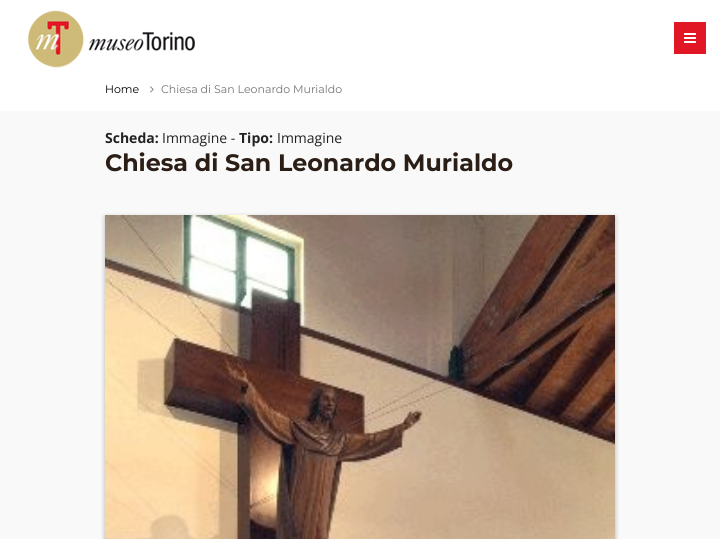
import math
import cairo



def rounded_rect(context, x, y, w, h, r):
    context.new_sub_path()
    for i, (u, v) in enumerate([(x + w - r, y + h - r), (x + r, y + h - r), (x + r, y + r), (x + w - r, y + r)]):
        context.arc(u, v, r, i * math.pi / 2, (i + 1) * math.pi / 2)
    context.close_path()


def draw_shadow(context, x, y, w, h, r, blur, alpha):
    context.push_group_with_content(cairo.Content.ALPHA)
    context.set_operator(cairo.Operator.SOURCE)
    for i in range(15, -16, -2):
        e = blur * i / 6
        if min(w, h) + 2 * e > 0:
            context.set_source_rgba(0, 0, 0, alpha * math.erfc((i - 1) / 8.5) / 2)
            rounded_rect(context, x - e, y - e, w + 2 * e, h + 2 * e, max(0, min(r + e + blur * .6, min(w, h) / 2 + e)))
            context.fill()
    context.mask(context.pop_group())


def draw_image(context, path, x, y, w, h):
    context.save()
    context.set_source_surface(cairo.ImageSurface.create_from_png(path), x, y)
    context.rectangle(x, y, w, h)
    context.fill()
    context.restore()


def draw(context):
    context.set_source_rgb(1, 1, 1)
    context.paint()
    draw_image(context, "images/1.png", 27, 10, 168, 58)
    context.set_source_rgb(226 / 255, 23 / 255, 37 / 255)
    context.rectangle(674, 22, 32, 32)
    context.fill()
    draw_image(context, "images/2.png", 684, 33, 12, 10)
    draw_image(context, "images/3.png", 150, 86, 4, 7)
    context.set_source_rgb(249 / 255, 249 / 255, 249 / 255)
    context.rectangle(0, 111, 720, 428)
    context.fill()
    context.set_source_rgb(0, 0, 0)
    draw_shadow(context, 105, 217, 510, 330, 0, 2.5, 0.3)
    draw_image(context, "images/4.png", 105, 215, 510, 324)
    context.select_font_face("Montserrat")
    context.set_font_size(11)
    context.set_source_rgb(0, 0, 0)
    context.move_to(105, 93)
    context.show_text("Home")
    context.set_source_rgb(116 / 255, 116 / 255, 116 / 255)
    context.move_to(161, 93)
    context.show_text("Chiesa di San Leonardo Murialdo")
    context.select_font_face("Open Sans", cairo.FontSlant.NORMAL, cairo.FontWeight.BOLD)
    context.set_font_size(14)
    context.set_source_rgb(34 / 255, 34 / 255, 34 / 255)
    context.move_to(105, 143)
    context.show_text("Scheda:")
    context.select_font_face("Open Sans")
    context.move_to(162, 143)
    context.show_text("Immagine -")
    context.select_font_face("Open Sans", cairo.FontSlant.NORMAL, cairo.FontWeight.BOLD)
    context.move_to(239, 143)
    context.show_text("Tipo:")
    context.select_font_face("Open Sans")
    context.move_to(277, 143)
    context.show_text("Immagine")
    context.select_font_face("Montserrat", cairo.FontSlant.NORMAL, cairo.FontWeight.BOLD)
    context.set_font_size(23.75)
    context.set_source_rgb(42 / 255, 30 / 255, 22 / 255)
    context.move_to(105, 171)
    context.show_text("Chiesa di San Leonardo Murialdo")


surface = cairo.ImageSurface(cairo.Format.RGB24, 720, 539)
context = cairo.Context(surface)
options = cairo.FontOptions()
options.set_hint_metrics(cairo.HintMetrics.OFF)
options.set_hint_style(cairo.HintStyle.NONE)
context.set_font_options(options)
context.set_miter_limit(4)
draw(context)
surface.write_to_png("out.png")
